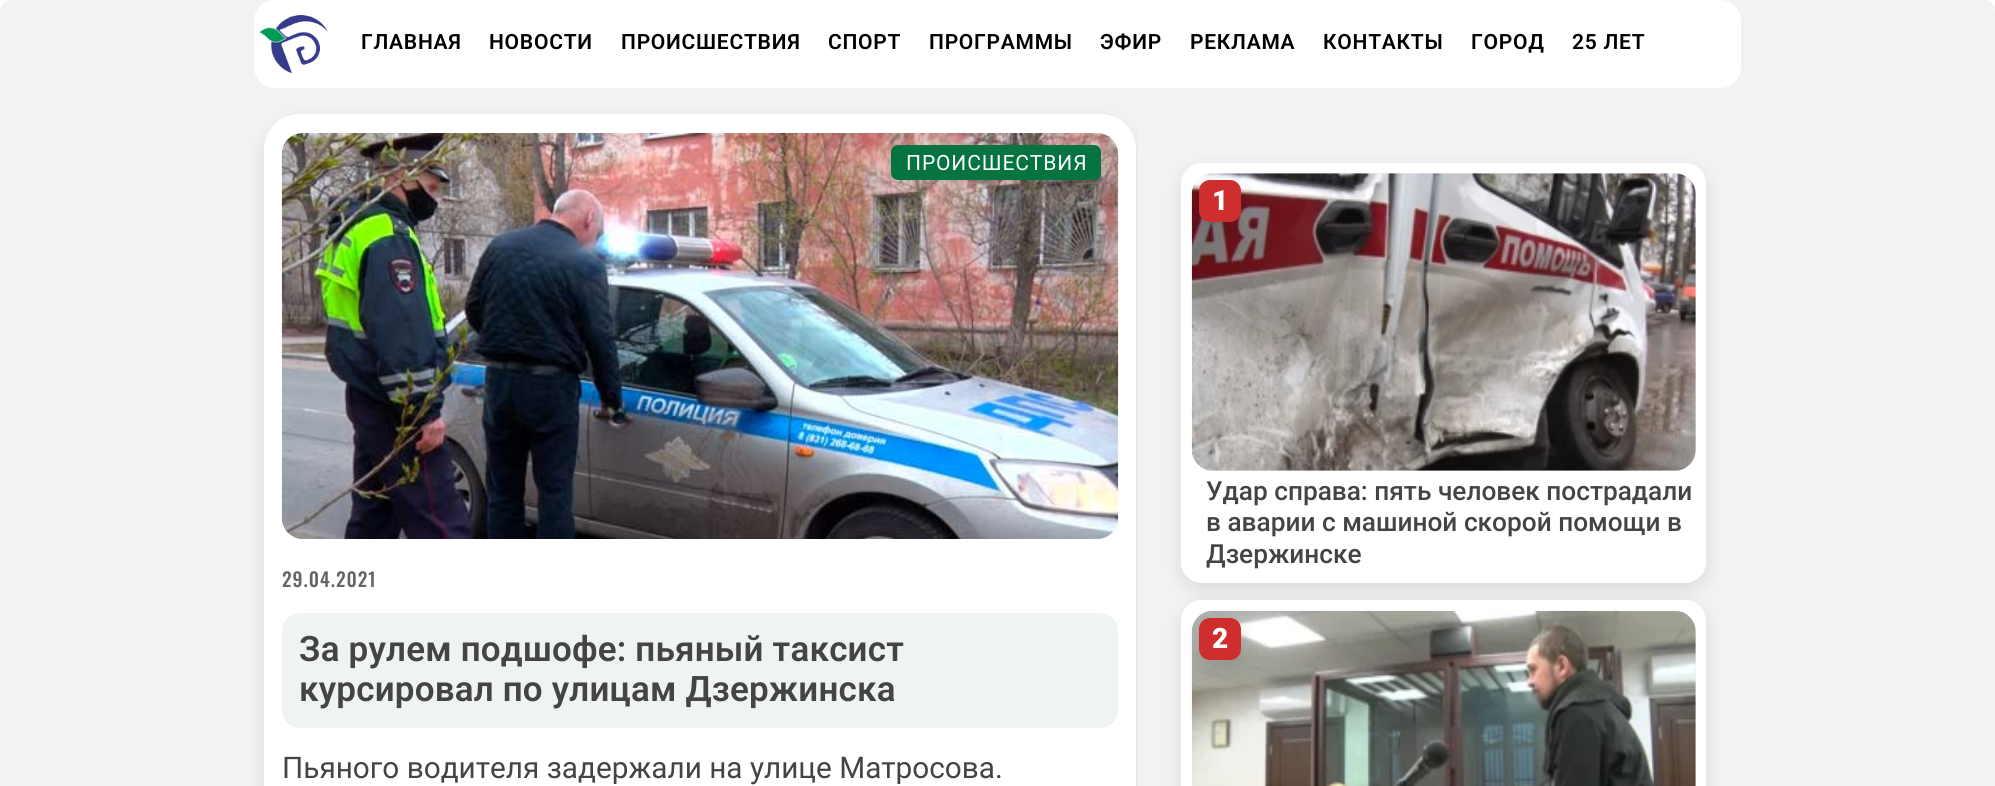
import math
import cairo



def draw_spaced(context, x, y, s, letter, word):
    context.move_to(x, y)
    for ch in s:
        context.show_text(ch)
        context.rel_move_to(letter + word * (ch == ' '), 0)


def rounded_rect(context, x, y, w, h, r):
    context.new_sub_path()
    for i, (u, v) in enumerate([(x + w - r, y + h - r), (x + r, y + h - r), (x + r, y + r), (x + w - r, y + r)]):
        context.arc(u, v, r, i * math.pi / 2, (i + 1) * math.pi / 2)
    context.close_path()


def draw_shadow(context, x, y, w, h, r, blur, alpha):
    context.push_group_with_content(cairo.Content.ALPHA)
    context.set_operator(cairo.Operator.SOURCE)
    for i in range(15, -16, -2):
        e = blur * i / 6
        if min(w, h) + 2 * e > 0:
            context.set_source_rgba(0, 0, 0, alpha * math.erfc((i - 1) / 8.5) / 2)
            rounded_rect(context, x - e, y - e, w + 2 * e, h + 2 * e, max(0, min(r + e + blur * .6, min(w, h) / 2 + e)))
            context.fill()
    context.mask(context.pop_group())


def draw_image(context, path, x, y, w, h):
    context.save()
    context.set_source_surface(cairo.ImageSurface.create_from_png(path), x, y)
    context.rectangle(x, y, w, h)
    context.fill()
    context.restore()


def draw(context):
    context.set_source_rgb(1, 1, 1)
    context.paint()
    context.set_source_rgb(242 / 255, 242 / 255, 242 / 255)
    rounded_rect(context, 0, 0, 1995, 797, 11)
    context.fill()
    context.set_source_rgb(1, 1, 1)
    rounded_rect(context, 254, 0, 1487, 88, 21)
    context.fill()
    draw_image(context, "images/1.png", 259, 15, 69, 58)
    context.set_source_rgb(0, 0, 0)
    draw_shadow(context, 264, 121, 872, 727, 35, 9, 0.1)
    context.set_source_rgb(1, 1, 1)
    rounded_rect(context, 264, 114, 872, 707, 35)
    context.fill()
    draw_image(context, "images/2.png", 281, 133, 838, 406)
    context.set_source_rgb(5 / 255, 116 / 255, 64 / 255)
    rounded_rect(context, 891, 145, 210, 35, 7)
    context.fill()
    context.set_source_rgb(240 / 255, 243 / 255, 244 / 255)
    rounded_rect(context, 282, 613, 836, 115, 18)
    context.fill()
    context.save()
    rounded_rect(context, 254, 88, 1487, 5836, 11)
    context.clip()
    context.set_source_rgb(242 / 255, 242 / 255, 242 / 255)
    rounded_rect(context, 1138, 96, 612, 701, 11)
    context.fill()
    context.restore()
    context.set_source_rgb(0, 0, 0)
    draw_shadow(context, 1181, 170, 525, 420, 21, 9, 0.1)
    context.set_source_rgb(1, 1, 1)
    rounded_rect(context, 1181, 163, 525, 420, 21)
    context.fill()
    context.set_source_rgb(240 / 255, 240 / 255, 240 / 255)
    rounded_rect(context, 1192, 173, 504, 298, 21)
    context.fill()
    draw_image(context, "images/3.png", 1191, 173, 505, 298)
    context.set_source_rgb(0, 0, 0)
    draw_shadow(context, 1199, 187, 42, 42, 11, 9, 0.1)
    context.set_source_rgb(207 / 255, 46 / 255, 46 / 255)
    rounded_rect(context, 1199, 180, 42, 42, 11)
    context.fill()
    context.set_source_rgb(0, 0, 0)
    draw_shadow(context, 1181, 607, 525, 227, 21, 9, 0.1)
    context.set_source_rgb(1, 1, 1)
    rounded_rect(context, 1181, 600, 525, 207, 21)
    context.fill()
    context.set_source_rgb(240 / 255, 240 / 255, 240 / 255)
    rounded_rect(context, 1192, 611, 504, 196, 21)
    context.fill()
    draw_image(context, "images/4.png", 1191, 610, 505, 176)
    context.set_source_rgb(0, 0, 0)
    draw_shadow(context, 1199, 625, 42, 42, 11, 9, 0.1)
    context.set_source_rgb(207 / 255, 46 / 255, 46 / 255)
    rounded_rect(context, 1199, 618, 42, 42, 11)
    context.fill()
    context.select_font_face("Roboto SemiBold")
    context.set_font_size(21)
    context.set_source_rgb(0, 0, 0)
    draw_spaced(context, 361, 49, "ГЛАВНАЯ", 0.75, 0)
    draw_spaced(context, 489, 49, "НОВОСТИ", 0.75, 0)
    draw_spaced(context, 621, 49, "ПРОИСШЕСТВИЯ", 0.75, 0)
    draw_spaced(context, 828, 49, "СПОРТ", 0.75, 0)
    draw_spaced(context, 929, 49, "ПРОГРАММЫ", 0.75, 0)
    draw_spaced(context, 1100, 49, "ЭФИР", 0.75, 0)
    draw_spaced(context, 1190, 49, "РЕКЛАМА", 0.75, 0)
    draw_spaced(context, 1323, 49, "КОНТАКТЫ", 0.75, 0)
    draw_spaced(context, 1471, 49, "ГОРОД", 0.75, 0)
    draw_spaced(context, 1572, 49, "25 ЛЕТ", 0.75, 0)
    context.select_font_face("Roboto")
    context.set_source_rgb(1, 1, 1)
    draw_spaced(context, 906, 170, "ПРОИСШЕСТВИЯ", 0.9, 0)
    context.select_font_face("Oswald Medium")
    context.set_font_size(19.25)
    context.set_source_rgb(101 / 255, 101 / 255, 101 / 255)
    draw_spaced(context, 282, 587, "29.04.2021", 1, 0)
    context.select_font_face("Roboto SemiBold")
    context.set_font_size(35)
    context.set_source_rgb(68 / 255, 68 / 255, 68 / 255)
    draw_spaced(context, 299, 661, "За рулем подшофе: пьяный таксист", 0.2, 0)
    draw_spaced(context, 299, 701, "курсировал по улицам Дзержинска", 0.2, 0)
    context.select_font_face("Roboto")
    context.set_font_size(29.75)
    context.move_to(282, 778)
    context.show_text("Пьяного водителя задержали на улице Матросова.")
    context.select_font_face("Roboto Black")
    context.set_font_size(28)
    context.set_source_rgb(1, 1, 1)
    context.move_to(1212, 210)
    context.show_text("1")
    context.select_font_face("Roboto Medium")
    context.set_font_size(26.25)
    context.set_source_rgb(68 / 255, 68 / 255, 68 / 255)
    context.move_to(1206, 500)
    context.show_text("Удар справа: пять человек пострадали")
    context.move_to(1206, 531)
    context.show_text("в аварии с машиной скорой помощи в")
    context.move_to(1206, 563)
    context.show_text("Дзержинске")
    context.select_font_face("Roboto Black")
    context.set_font_size(28)
    context.set_source_rgb(1, 1, 1)
    context.move_to(1212, 648)
    context.show_text("2")


surface = cairo.ImageSurface(cairo.Format.RGB24, 1995, 786)
context = cairo.Context(surface)
options = cairo.FontOptions()
options.set_hint_metrics(cairo.HintMetrics.OFF)
options.set_hint_style(cairo.HintStyle.NONE)
context.set_font_options(options)
context.set_miter_limit(4)
draw(context)
surface.write_to_png("out.png")
